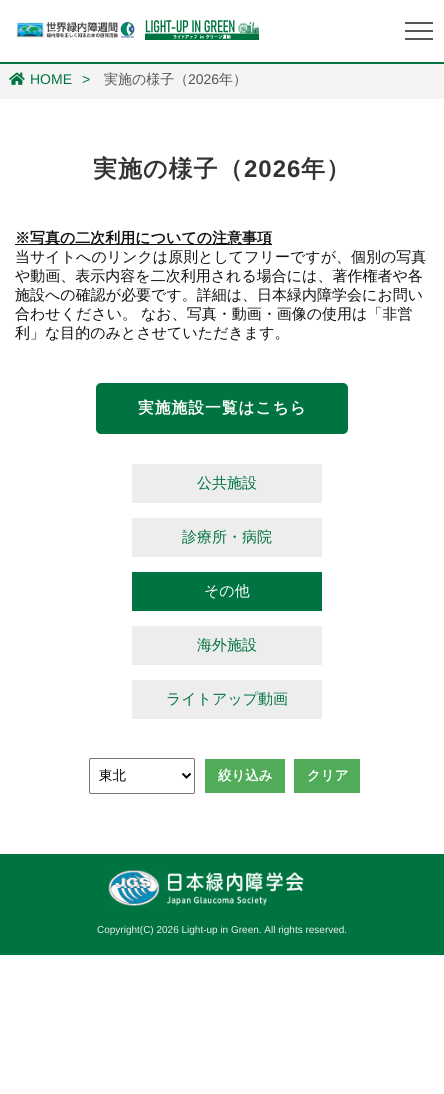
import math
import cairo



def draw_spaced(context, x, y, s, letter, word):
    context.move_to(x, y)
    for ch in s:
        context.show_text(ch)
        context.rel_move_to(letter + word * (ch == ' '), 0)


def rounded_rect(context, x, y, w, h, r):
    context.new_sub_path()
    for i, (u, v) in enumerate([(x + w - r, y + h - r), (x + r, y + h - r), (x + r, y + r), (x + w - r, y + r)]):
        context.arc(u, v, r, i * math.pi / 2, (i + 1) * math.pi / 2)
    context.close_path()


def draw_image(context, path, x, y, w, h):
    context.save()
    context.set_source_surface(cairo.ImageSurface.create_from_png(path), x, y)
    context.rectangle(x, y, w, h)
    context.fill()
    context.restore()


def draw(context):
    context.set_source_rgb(1, 1, 1)
    context.paint()
    context.set_source_rgb(0, 116 / 255, 64 / 255)
    context.rectangle(0, 62, 444, 2)
    context.fill()
    draw_image(context, "images/1.png", 16, 21, 119, 17)
    draw_image(context, "images/2.png", 145, 20, 114, 20)
    context.set_source_rgb(85 / 255, 85 / 255, 85 / 255)
    context.rectangle(405, 22, 28, 2)
    context.fill()
    context.rectangle(405, 30, 28, 2)
    context.fill()
    context.rectangle(405, 38, 28, 2)
    context.fill()
    context.set_source_rgb(244 / 255, 244 / 255, 244 / 255)
    context.rectangle(0, 64, 444, 35)
    context.fill()
    draw_image(context, "images/3.png", 9, 72, 16, 13)
    context.set_source_rgb(17 / 255, 17 / 255, 17 / 255)
    context.rectangle(15, 244, 257, 1)
    context.fill()
    context.set_source_rgb(0, 116 / 255, 64 / 255)
    rounded_rect(context, 96, 383, 252, 51, 5)
    context.fill()
    context.set_source_rgb(237 / 255, 237 / 255, 237 / 255)
    context.rectangle(132, 464, 190, 39)
    context.fill()
    context.rectangle(132, 518, 190, 39)
    context.fill()
    context.set_source_rgb(0, 116 / 255, 64 / 255)
    context.rectangle(132, 572, 190, 39)
    context.fill()
    context.set_source_rgb(237 / 255, 237 / 255, 237 / 255)
    context.rectangle(132, 626, 190, 39)
    context.fill()
    context.rectangle(132, 680, 190, 39)
    context.fill()
    rounded_rect(context, 89.5, 758.5, 105, 35, 1.5)
    context.set_source_rgb(118 / 255, 118 / 255, 118 / 255)
    context.set_line_width(1)
    context.stroke()
    context.new_path()
    context.move_to(182.5, 773.5)
    context.line_to(186.5, 777.5)
    context.line_to(190.5, 773.5)
    context.set_source_rgb(0, 0, 0)
    context.set_line_width(2)
    context.stroke()
    context.set_source_rgb(80 / 255, 172 / 255, 89 / 255)
    context.rectangle(205, 759, 80, 34)
    context.fill()
    context.rectangle(294, 759, 66, 34)
    context.fill()
    context.set_source_rgb(0, 116 / 255, 64 / 255)
    context.rectangle(0, 854, 444, 101)
    context.fill()
    draw_image(context, "images/4.png", 108, 869, 196, 37)
    context.select_font_face("Liberation Sans")
    context.set_font_size(14)
    context.move_to(30, 84)
    context.show_text("HOME")
    context.move_to(82, 84)
    context.show_text(">")
    context.select_font_face("WenQuanYi Zen Hei Medium")
    context.set_source_rgb(85 / 255, 85 / 255, 85 / 255)
    context.move_to(104, 84)
    context.show_text("実施の様子（")
    context.select_font_face("Liberation Sans")
    context.move_to(188, 84)
    context.show_text("2026")
    context.select_font_face("WenQuanYi Zen Hei Medium")
    context.move_to(219, 84)
    context.show_text("年）")
    context.select_font_face("WenQuanYi Zen Hei", cairo.FontSlant.NORMAL, cairo.FontWeight.BOLD)
    context.set_font_size(24)
    context.set_source_rgb(51 / 255, 51 / 255, 51 / 255)
    draw_spaced(context, 93, 177, "実施の様子（", 1, 0)
    context.select_font_face("Liberation Sans", cairo.FontSlant.NORMAL, cairo.FontWeight.BOLD)
    draw_spaced(context, 244, 177, "2026", 1, 0)
    context.select_font_face("WenQuanYi Zen Hei", cairo.FontSlant.NORMAL, cairo.FontWeight.BOLD)
    draw_spaced(context, 301, 177, "年）", 1, 0)
    context.set_font_size(15)
    context.set_source_rgb(17 / 255, 17 / 255, 17 / 255)
    context.move_to(15, 243)
    context.show_text("※写真の二次利用についての注意事項")
    context.select_font_face("WenQuanYi Zen Hei Medium")
    context.move_to(15, 262)
    context.show_text("当サイトへのリンクは原則としてフリーですが、個別の写真")
    context.move_to(15, 281)
    context.show_text("や動画、表示内容を二次利用される場合には、著作権者や各")
    context.move_to(15, 300)
    context.show_text("施設への確認が必要です。詳細は、日本緑内障学会にお問い")
    context.move_to(15, 319)
    context.show_text("合わせください。")
    context.move_to(141, 319)
    context.show_text("なお、写真・動画・画像の使用は「非営")
    context.move_to(15, 338)
    context.show_text("利」な目的のみとさせていただきます。")
    context.select_font_face("WenQuanYi Zen Hei", cairo.FontSlant.NORMAL, cairo.FontWeight.BOLD)
    context.set_font_size(15.75)
    context.set_source_rgb(1, 1, 1)
    draw_spaced(context, 138, 413, "実施施設一覧はこちら", 1, 0)
    context.select_font_face("WenQuanYi Zen Hei Medium")
    context.set_font_size(15)
    context.set_source_rgb(0, 116 / 255, 64 / 255)
    context.move_to(197, 488)
    context.show_text("公共施設")
    context.move_to(182, 542)
    context.show_text("診療所・病院")
    context.set_source_rgb(1, 1, 1)
    context.move_to(204, 596)
    context.show_text("その他")
    context.set_source_rgb(0, 116 / 255, 64 / 255)
    context.move_to(197, 650)
    context.show_text("海外施設")
    context.move_to(166, 704)
    context.show_text("ライトアップ動画")
    context.set_font_size(13.5)
    context.set_source_rgb(0, 0, 0)
    context.move_to(99, 780)
    context.show_text("東北")
    context.select_font_face("WenQuanYi Zen Hei", cairo.FontSlant.NORMAL, cairo.FontWeight.BOLD)
    context.set_source_rgb(1, 1, 1)
    context.move_to(218, 780)
    context.show_text("絞り込み")
    context.move_to(307, 780)
    context.show_text("クリア")
    context.select_font_face("Liberation Sans")
    context.set_font_size(10)
    context.set_source_rgb(238 / 255, 238 / 255, 238 / 255)
    context.move_to(97, 933)
    context.show_text("Copyright(C) 2026 Light-up in Green. All rights reserved.")


surface = cairo.ImageSurface(cairo.Format.RGB24, 444, 1094)
context = cairo.Context(surface)
options = cairo.FontOptions()
options.set_hint_metrics(cairo.HintMetrics.OFF)
options.set_hint_style(cairo.HintStyle.NONE)
context.set_font_options(options)
context.set_miter_limit(4)
draw(context)
surface.write_to_png("out.png")
